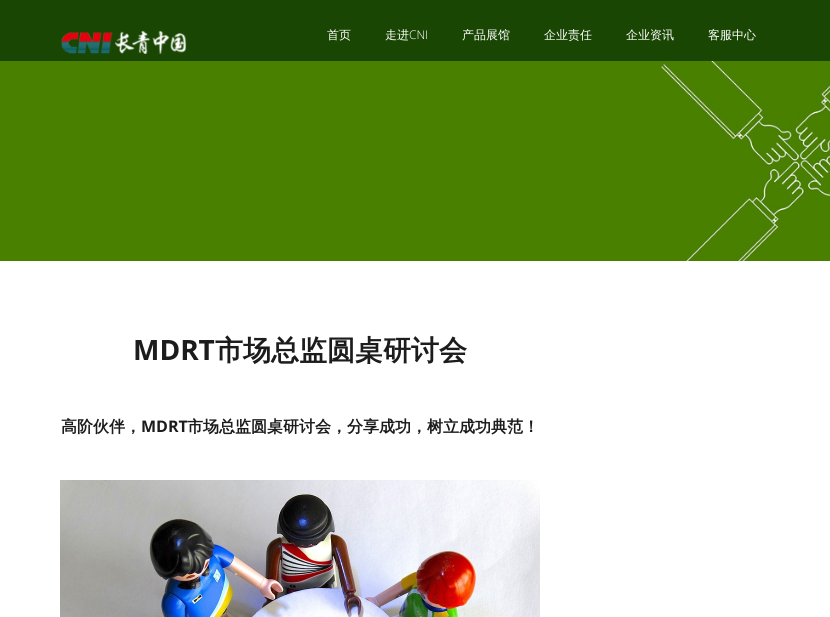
import math
import cairo



def draw_image(context, path, x, y, w, h):
    context.save()
    context.set_source_surface(cairo.ImageSurface.create_from_png(path), x, y)
    context.rectangle(x, y, w, h)
    context.fill()
    context.restore()


def draw(context):
    context.set_source_rgb(1, 1, 1)
    context.paint()
    context.set_source_rgb(25 / 255, 71 / 255, 3 / 255)
    context.rectangle(0, 0, 830, 61)
    context.fill()
    draw_image(context, "images/1.png", 61, 30, 126, 24)
    draw_image(context, "images/2.png", 0, 61, 830, 200)
    draw_image(context, "images/3.png", 60, 480, 480, 137)
    context.select_font_face("WenQuanYi Zen Hei Medium")
    context.set_font_size(12)
    context.set_source_rgb(1, 1, 1)
    context.move_to(327, 39)
    context.show_text("首页")
    context.move_to(385, 39)
    context.show_text("走进")
    context.select_font_face("Open Sans Light")
    context.move_to(409, 39)
    context.show_text("CNI")
    context.select_font_face("WenQuanYi Zen Hei Medium")
    context.move_to(462, 39)
    context.show_text("产品展馆")
    context.move_to(544, 39)
    context.show_text("企业责任")
    context.move_to(626, 39)
    context.show_text("企业资讯")
    context.move_to(708, 39)
    context.show_text("客服中心")
    context.select_font_face("Open Sans", cairo.FontSlant.NORMAL, cairo.FontWeight.BOLD)
    context.set_font_size(28)
    context.set_source_rgb(28 / 255, 28 / 255, 28 / 255)
    context.move_to(133, 360)
    context.show_text("MDRT")
    context.select_font_face("WenQuanYi Zen Hei", cairo.FontSlant.NORMAL, cairo.FontWeight.BOLD)
    context.move_to(215, 360)
    context.show_text("市场总监圆桌研讨会")
    context.set_font_size(16)
    context.move_to(61, 432)
    context.show_text("高阶伙伴，")
    context.select_font_face("Open Sans", cairo.FontSlant.NORMAL, cairo.FontWeight.BOLD)
    context.move_to(141, 432)
    context.show_text("MDRT")
    context.select_font_face("WenQuanYi Zen Hei", cairo.FontSlant.NORMAL, cairo.FontWeight.BOLD)
    context.move_to(187, 432)
    context.show_text("市场总监圆桌研讨会，分享成功，树立成功典范！")


surface = cairo.ImageSurface(cairo.Format.RGB24, 830, 617)
context = cairo.Context(surface)
options = cairo.FontOptions()
options.set_hint_metrics(cairo.HintMetrics.OFF)
options.set_hint_style(cairo.HintStyle.NONE)
context.set_font_options(options)
context.set_miter_limit(4)
draw(context)
surface.write_to_png("out.png")
